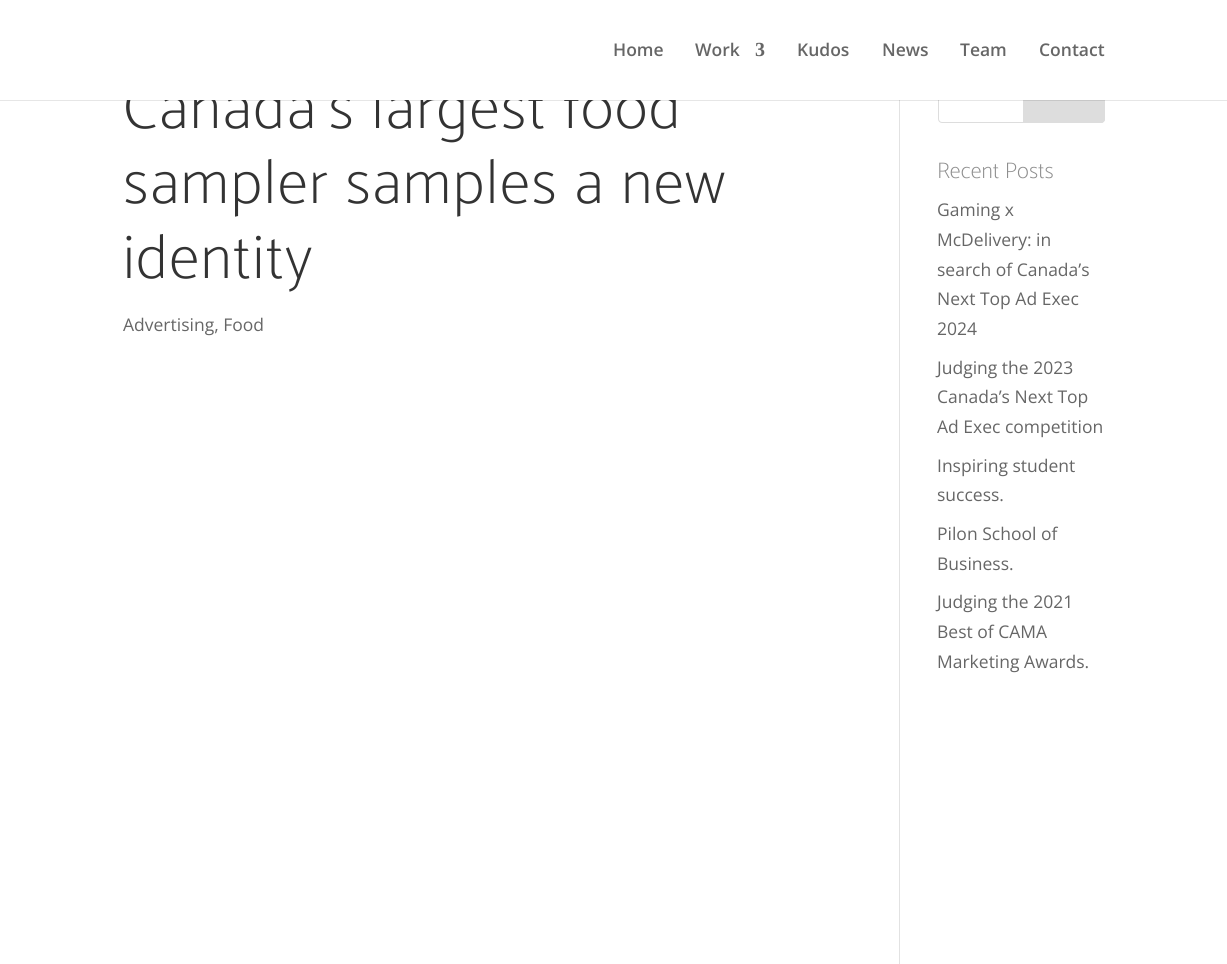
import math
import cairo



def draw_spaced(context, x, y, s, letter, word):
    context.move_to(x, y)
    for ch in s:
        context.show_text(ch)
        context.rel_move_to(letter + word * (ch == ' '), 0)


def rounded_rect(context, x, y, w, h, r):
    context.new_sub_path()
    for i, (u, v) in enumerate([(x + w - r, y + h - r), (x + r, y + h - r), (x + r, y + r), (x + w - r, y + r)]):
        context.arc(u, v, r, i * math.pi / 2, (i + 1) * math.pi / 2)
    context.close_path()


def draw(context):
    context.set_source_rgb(1, 1, 1)
    context.paint()
    rounded_rect(context, 938.5, 73.5, 166, 49, 3.5)
    context.set_source_rgb(221 / 255, 221 / 255, 221 / 255)
    context.set_line_width(1)
    context.stroke()
    context.new_path()
    context.move_to(1023.5, 73.5)
    context.line_to(1101, 73.5)
    context.curve_to(1103, 73.5, 1104.5, 75, 1104.5, 77)
    context.line_to(1104.5, 119)
    context.curve_to(1104.5, 121, 1103, 122.5, 1101, 122.5)
    context.line_to(1023.5, 122.5)
    context.close_path()
    context.fill_preserve()
    context.stroke()
    context.set_source_rgb(226 / 255, 226 / 255, 226 / 255)
    context.rectangle(899, 100, 1, 864)
    context.fill()
    context.set_source_rgba(0, 0, 0, 0.1)
    context.new_path()
    context.move_to(0, 100)
    context.line_to(0, 101)
    context.line_to(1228, 101)
    context.line_to(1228, 1)
    context.line_to(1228, 100)
    context.close_path()
    context.fill()
    context.select_font_face("Open Sans SemiBold")
    context.set_font_size(17.5)
    context.set_source_rgb(102 / 255, 102 / 255, 102 / 255)
    context.move_to(613, 56)
    context.show_text("Home")
    context.move_to(695, 56)
    context.show_text("Work")
    context.select_font_face("Liberation Serif", cairo.FontSlant.NORMAL, cairo.FontWeight.BOLD)
    context.set_font_size(20)
    context.move_to(755, 56)
    context.show_text("3")
    context.select_font_face("Open Sans SemiBold")
    context.set_font_size(17.5)
    context.move_to(797, 56)
    context.show_text("Kudos")
    context.move_to(882, 56)
    context.show_text("News")
    context.move_to(960, 56)
    context.show_text("Team")
    context.move_to(1039, 56)
    context.show_text("Contact")
    context.select_font_face("Catamaran Thin")
    context.set_font_size(62.5)
    context.set_source_rgb(51 / 255, 51 / 255, 51 / 255)
    draw_spaced(context, 123, 128, "Canada’s largest food", 1.25, 0)
    context.set_source_rgb(1, 1, 1)
    context.rectangle(126, 73, 979, 27)
    context.fill()
    context.set_source_rgb(51 / 255, 51 / 255, 51 / 255)
    draw_spaced(context, 123, 203, "sampler samples a new", 1.25, 0)
    draw_spaced(context, 123, 278, "identity", 1.25, 0)
    context.select_font_face("Open Sans")
    context.set_font_size(17.5)
    context.set_source_rgb(102 / 255, 102 / 255, 102 / 255)
    context.move_to(123, 331)
    context.show_text("Advertising, Food")
    context.select_font_face("Catamaran Thin")
    context.set_font_size(22.5)
    context.set_source_rgb(142 / 255, 142 / 255, 142 / 255)
    context.move_to(937, 178)
    context.show_text("Recent Posts")
    context.select_font_face("Open Sans")
    context.set_font_size(17.5)
    context.set_source_rgb(102 / 255, 102 / 255, 102 / 255)
    context.move_to(937, 216)
    context.show_text("Gaming x")
    context.move_to(937, 246)
    context.show_text("McDelivery: in")
    context.move_to(937, 276)
    context.show_text("search of Canada’s")
    context.move_to(937, 305)
    context.show_text("Next Top Ad Exec")
    context.move_to(937, 335)
    context.show_text("2024")
    context.move_to(937, 374)
    context.show_text("Judging the 2023")
    context.move_to(937, 403)
    context.show_text("Canada’s Next Top")
    context.move_to(937, 433)
    context.show_text("Ad Exec competition")
    context.move_to(937, 472)
    context.show_text("Inspiring student")
    context.move_to(937, 501)
    context.show_text("success.")
    context.move_to(937, 540)
    context.show_text("Pilon School of")
    context.move_to(937, 570)
    context.show_text("Business.")
    context.move_to(937, 608)
    context.show_text("Judging the 2021")
    context.move_to(937, 638)
    context.show_text("Best of CAMA")
    context.move_to(937, 668)
    context.show_text("Marketing Awards.")


surface = cairo.ImageSurface(cairo.Format.RGB24, 1227, 964)
context = cairo.Context(surface)
options = cairo.FontOptions()
options.set_hint_metrics(cairo.HintMetrics.OFF)
options.set_hint_style(cairo.HintStyle.NONE)
context.set_font_options(options)
context.set_miter_limit(4)
draw(context)
surface.write_to_png("out.png")
